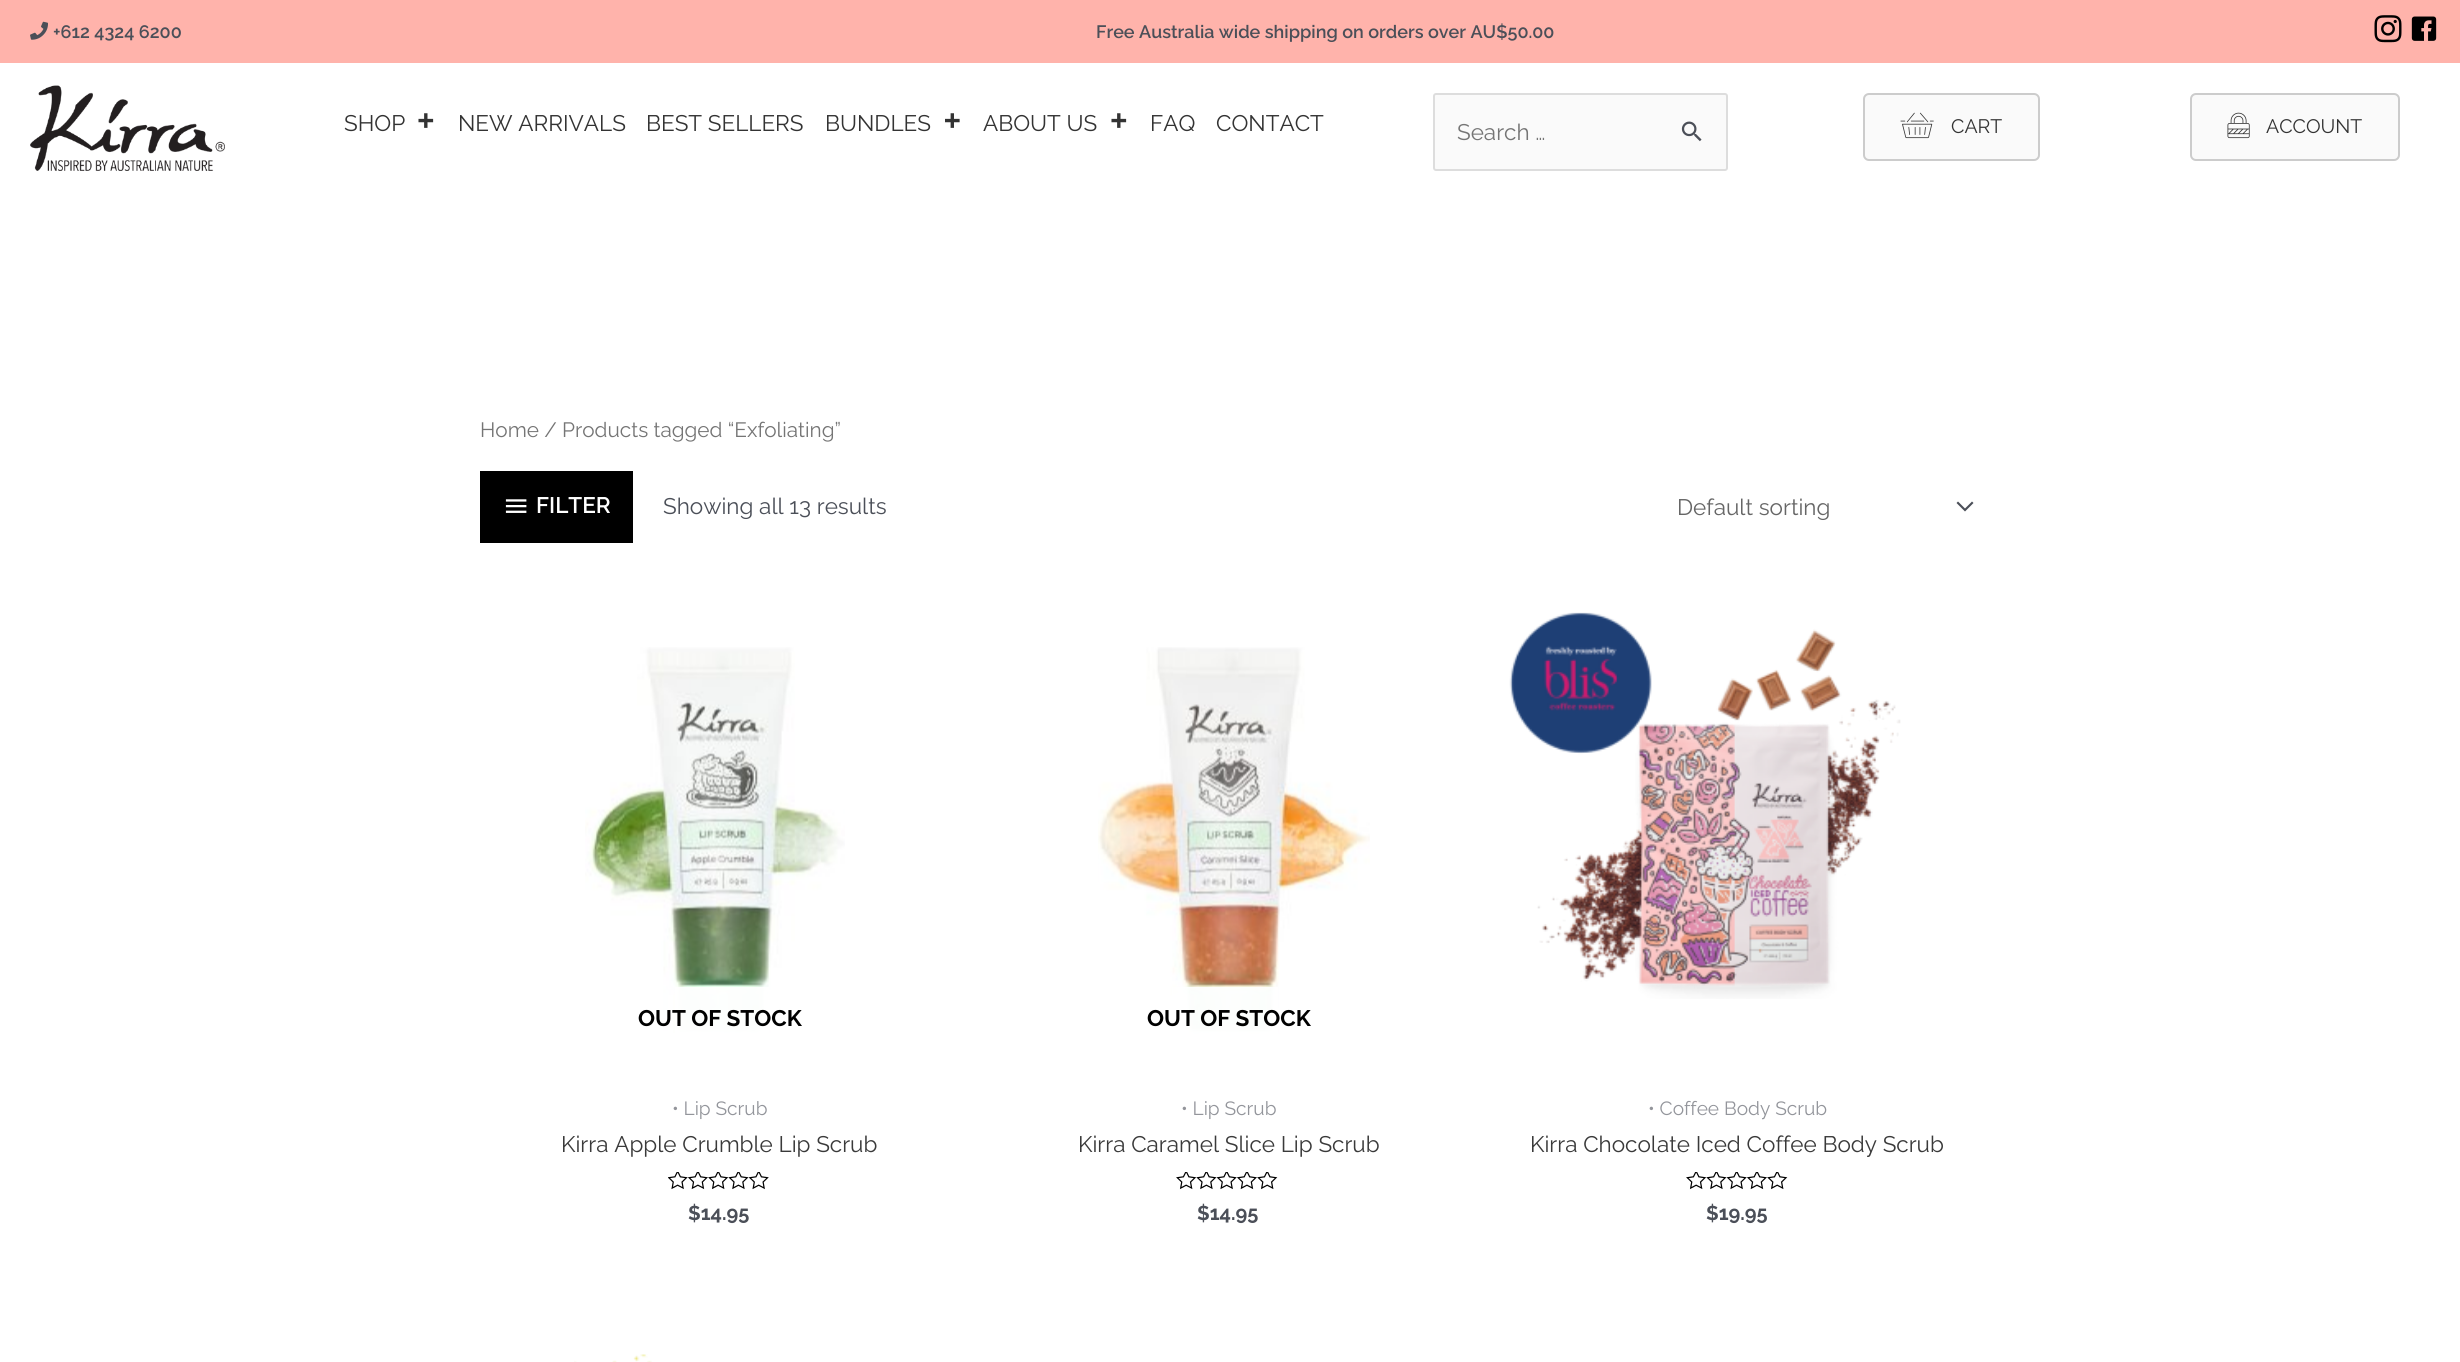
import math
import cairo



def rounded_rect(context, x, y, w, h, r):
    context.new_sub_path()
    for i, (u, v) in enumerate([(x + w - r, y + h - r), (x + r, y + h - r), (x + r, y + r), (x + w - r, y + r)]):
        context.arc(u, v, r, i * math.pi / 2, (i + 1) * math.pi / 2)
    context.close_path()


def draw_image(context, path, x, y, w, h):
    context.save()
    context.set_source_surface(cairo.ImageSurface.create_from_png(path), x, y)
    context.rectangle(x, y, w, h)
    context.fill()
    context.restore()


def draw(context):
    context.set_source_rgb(1, 1, 1)
    context.paint()
    context.set_source_rgb(1, 179 / 255, 171 / 255)
    context.rectangle(0, 0, 2460, 63)
    context.fill()
    draw_image(context, "images/1.png", 30, 21, 18, 19)
    draw_image(context, "images/2.png", 2374, 15, 28, 28)
    draw_image(context, "images/3.png", 2411, 16, 26, 25)
    draw_image(context, "images/4.png", 30, 85, 195, 86)
    draw_image(context, "images/5.png", 418, 113, 16, 15)
    draw_image(context, "images/6.png", 945, 113, 15, 15)
    draw_image(context, "images/5.png", 1111, 113, 16, 15)
    context.set_source_rgb(250 / 255, 250 / 255, 250 / 255)
    rounded_rect(context, 1434, 94, 293, 76, 2)
    context.fill_preserve()
    context.set_source_rgb(221 / 255, 221 / 255, 221 / 255)
    context.stroke()
    draw_image(context, "images/7.png", 1681, 121, 21, 21)
    context.set_source_rgb(250 / 255, 250 / 255, 250 / 255)
    rounded_rect(context, 1864, 94, 175, 66, 5)
    context.fill_preserve()
    context.set_source_rgb(204 / 255, 204 / 255, 204 / 255)
    context.stroke()
    draw_image(context, "images/8.png", 1900, 112, 34, 27)
    context.set_source_rgb(250 / 255, 250 / 255, 250 / 255)
    rounded_rect(context, 2191, 94, 208, 66, 5)
    context.fill_preserve()
    context.set_source_rgb(204 / 255, 204 / 255, 204 / 255)
    context.stroke()
    draw_image(context, "images/9.png", 2227, 112, 23, 27)
    context.set_source_rgb(0, 0, 0)
    context.rectangle(480, 471, 153, 72)
    context.fill()
    draw_image(context, "images/10.png", 505, 499, 22, 14)
    context.set_source_rgb(75 / 255, 79 / 255, 88 / 255)
    context.new_path()
    context.move_to(1956.5, 503)
    context.line_to(1965, 511.5)
    context.line_to(1973.5, 503)
    context.line_to(1972, 501.5)
    context.line_to(1965, 508.5)
    context.line_to(1958, 501.5)
    context.close_path()
    context.fill()
    draw_image(context, "images/11.png", 585, 647, 260, 386)
    context.set_source_rgba(1, 1, 1, 0.88)
    context.rectangle(675, 987, 94, 46)
    context.fill()
    draw_image(context, "images/12.png", 668, 1172, 101, 18)
    draw_image(context, "images/13.png", 1098, 647, 272, 387)
    context.rectangle(1172, 987, 106, 47)
    context.fill()
    draw_image(context, "images/14.png", 1176, 1172, 102, 18)
    draw_image(context, "images/15.png", 1509, 612, 392, 387)
    draw_image(context, "images/14.png", 1686, 1172, 102, 18)
    draw_image(context, "images/16.png", 574, 1354, 78, 8)
    context.select_font_face("Raleway SemiBold")
    context.set_font_size(18)
    context.set_source_rgb(75 / 255, 79 / 255, 88 / 255)
    context.move_to(53, 38)
    context.show_text("+612 4324 6200")
    context.move_to(1096, 38)
    context.show_text("Free Australia wide shipping on orders over AU$50.00")
    context.select_font_face("Raleway")
    context.set_font_size(22.5)
    context.set_source_rgb(51 / 255, 51 / 255, 51 / 255)
    context.move_to(344, 131)
    context.show_text("SHOP")
    context.move_to(458, 131)
    context.show_text("NEW ARRIVALS")
    context.move_to(646, 131)
    context.show_text("BEST SELLERS")
    context.move_to(825, 131)
    context.show_text("BUNDLES")
    context.move_to(983, 131)
    context.show_text("ABOUT US")
    context.move_to(1150, 131)
    context.show_text("FAQ")
    context.move_to(1216, 131)
    context.show_text("CONTACT")
    context.set_source_rgb(117 / 255, 117 / 255, 117 / 255)
    context.move_to(1457, 140)
    context.show_text("Search …")
    context.set_font_size(19.5)
    context.set_source_rgb(51 / 255, 51 / 255, 51 / 255)
    context.move_to(1951, 133)
    context.show_text("CART")
    context.move_to(2266, 133)
    context.show_text("ACCOUNT")
    context.set_font_size(20.75)
    context.set_source_rgb(117 / 255, 117 / 255, 117 / 255)
    context.move_to(480, 437)
    context.show_text("Home / Products tagged “Exfoliating”")
    context.select_font_face("Raleway SemiBold")
    context.set_font_size(22.5)
    context.set_source_rgb(1, 1, 1)
    context.move_to(536, 513)
    context.show_text("FILTER")
    context.select_font_face("Raleway")
    context.set_source_rgb(75 / 255, 79 / 255, 88 / 255)
    context.move_to(663, 514)
    context.show_text("Showing all 13 results")
    context.set_source_rgb(102 / 255, 102 / 255, 102 / 255)
    context.move_to(1677, 515)
    context.show_text("Default sorting")
    context.select_font_face("Raleway", cairo.FontSlant.NORMAL, cairo.FontWeight.BOLD)
    context.set_source_rgb(0, 0, 0)
    context.move_to(638, 1026)
    context.show_text("OUT OF STOCK")
    context.select_font_face("Raleway")
    context.set_font_size(19.1)
    context.set_source_rgb(147 / 255, 149 / 255, 155 / 255)
    context.move_to(672, 1115)
    context.show_text("• Lip Scrub")
    context.set_font_size(22.5)
    context.set_source_rgb(58 / 255, 58 / 255, 58 / 255)
    context.move_to(561, 1152)
    context.show_text("Kirra Apple Crumble Lip Scrub")
    context.select_font_face("Raleway", cairo.FontSlant.NORMAL, cairo.FontWeight.BOLD)
    context.set_font_size(20)
    context.set_source_rgb(75 / 255, 79 / 255, 88 / 255)
    context.move_to(688, 1220)
    context.show_text("$14.95")
    context.set_font_size(22.5)
    context.set_source_rgb(0, 0, 0)
    context.move_to(1147, 1026)
    context.show_text("OUT OF STOCK")
    context.select_font_face("Raleway")
    context.set_font_size(19.1)
    context.set_source_rgb(147 / 255, 149 / 255, 155 / 255)
    context.move_to(1181, 1115)
    context.show_text("• Lip Scrub")
    context.set_font_size(22.5)
    context.set_source_rgb(58 / 255, 58 / 255, 58 / 255)
    context.move_to(1078, 1152)
    context.show_text("Kirra Caramel Slice Lip Scrub")
    context.select_font_face("Raleway", cairo.FontSlant.NORMAL, cairo.FontWeight.BOLD)
    context.set_font_size(20)
    context.set_source_rgb(75 / 255, 79 / 255, 88 / 255)
    context.move_to(1197, 1220)
    context.show_text("$14.95")
    context.select_font_face("Raleway")
    context.set_font_size(19.1)
    context.set_source_rgb(147 / 255, 149 / 255, 155 / 255)
    context.move_to(1648, 1115)
    context.show_text("• Coffee Body Scrub")
    context.set_font_size(22.5)
    context.set_source_rgb(58 / 255, 58 / 255, 58 / 255)
    context.move_to(1530, 1152)
    context.show_text("Kirra Chocolate Iced Coffee Body Scrub")
    context.select_font_face("Raleway", cairo.FontSlant.NORMAL, cairo.FontWeight.BOLD)
    context.set_font_size(20)
    context.set_source_rgb(75 / 255, 79 / 255, 88 / 255)
    context.move_to(1706, 1220)
    context.show_text("$19.95")


surface = cairo.ImageSurface(cairo.Format.RGB24, 2460, 1362)
context = cairo.Context(surface)
options = cairo.FontOptions()
options.set_hint_metrics(cairo.HintMetrics.OFF)
options.set_hint_style(cairo.HintStyle.NONE)
context.set_font_options(options)
context.set_miter_limit(4)
draw(context)
surface.write_to_png("out.png")
